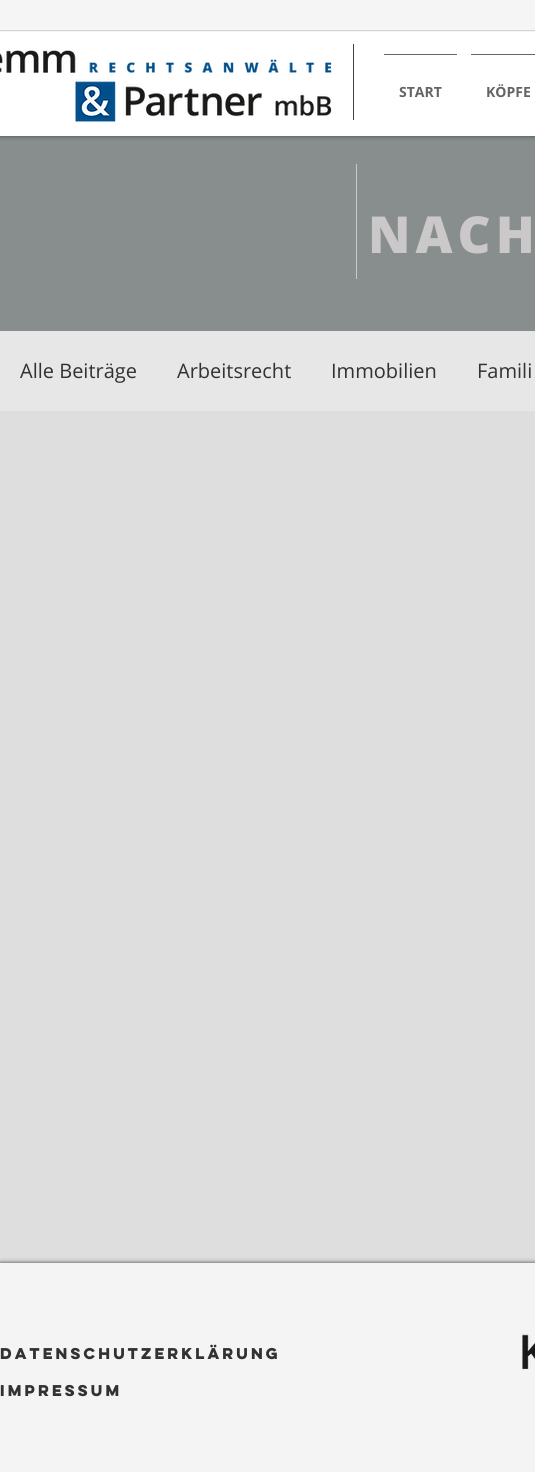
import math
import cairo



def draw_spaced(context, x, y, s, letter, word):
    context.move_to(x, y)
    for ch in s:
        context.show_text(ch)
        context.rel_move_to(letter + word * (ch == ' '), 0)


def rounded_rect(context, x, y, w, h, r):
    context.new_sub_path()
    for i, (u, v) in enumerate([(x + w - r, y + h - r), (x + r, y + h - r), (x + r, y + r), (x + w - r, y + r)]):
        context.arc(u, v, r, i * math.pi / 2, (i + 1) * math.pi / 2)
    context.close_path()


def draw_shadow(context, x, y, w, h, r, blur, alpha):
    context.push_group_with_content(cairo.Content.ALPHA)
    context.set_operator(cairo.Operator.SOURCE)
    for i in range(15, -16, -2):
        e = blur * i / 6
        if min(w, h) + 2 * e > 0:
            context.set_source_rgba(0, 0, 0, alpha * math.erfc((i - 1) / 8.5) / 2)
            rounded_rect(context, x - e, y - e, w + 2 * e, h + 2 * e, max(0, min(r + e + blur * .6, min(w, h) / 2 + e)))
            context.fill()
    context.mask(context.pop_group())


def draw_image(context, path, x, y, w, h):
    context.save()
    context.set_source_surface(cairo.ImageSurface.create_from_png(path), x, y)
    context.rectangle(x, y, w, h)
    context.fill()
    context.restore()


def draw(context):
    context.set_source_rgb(136 / 255, 142 / 255, 142 / 255)
    context.paint()
    context.set_source_rgb(0, 0, 0)
    draw_shadow(context, 0, 0, 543, 136, 0, 2.5, 0.5)
    context.set_source_rgb(1, 1, 1)
    context.rectangle(0, 32, 535, 104)
    context.fill()
    context.set_source_rgb(245 / 255, 245 / 255, 245 / 255)
    context.rectangle(0, 0, 535, 32)
    context.fill()
    context.set_source_rgb(209 / 255, 213 / 255, 215 / 255)
    context.rectangle(0, 30, 535, 1)
    context.fill()
    draw_image(context, "images/1.png", 0, 50, 332, 72)
    context.set_source_rgb(66 / 255, 66 / 255, 66 / 255)
    context.rectangle(353, 44, 1, 76)
    context.fill()
    context.set_source_rgb(101 / 255, 100 / 255, 100 / 255)
    context.rectangle(384, 54, 73, 1)
    context.fill()
    context.rectangle(471, 54, 64, 1)
    context.fill()
    context.set_source_rgb(202 / 255, 200 / 255, 200 / 255)
    context.rectangle(356, 164, 1, 115)
    context.fill()
    context.set_source_rgb(223 / 255, 222 / 255, 222 / 255)
    context.rectangle(0, 411, 535, 852)
    context.fill()
    context.set_source_rgb(232 / 255, 231 / 255, 231 / 255)
    context.rectangle(0, 331, 535, 80)
    context.fill()
    context.set_source_rgb(0, 0, 0)
    draw_shadow(context, 0, 1263, 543, 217, 0, 2.5, 0.7)
    context.set_source_rgb(244 / 255, 244 / 255, 244 / 255)
    context.rectangle(0, 1263, 535, 209)
    context.fill()
    draw_image(context, "images/2.png", 522, 1334, 13, 36)
    context.select_font_face("Open Sans", cairo.FontSlant.NORMAL, cairo.FontWeight.BOLD)
    context.set_font_size(14)
    context.set_source_rgb(101 / 255, 100 / 255, 100 / 255)
    context.move_to(399, 97)
    context.show_text("START")
    context.move_to(486, 97)
    context.show_text("KÖPFE")
    context.select_font_face("Open Sans ExtraBold")
    context.set_font_size(51)
    context.set_source_rgb(202 / 255, 200 / 255, 200 / 255)
    draw_spaced(context, 368, 253, "NACH", 5, 0)
    context.select_font_face("Open Sans")
    context.set_font_size(20)
    context.set_source_rgb(50 / 255, 50 / 255, 50 / 255)
    context.move_to(20, 378)
    context.show_text("Alle Beiträge")
    context.move_to(177, 378)
    context.show_text("Arbeitsrecht")
    context.move_to(331, 378)
    context.show_text("Immobilien")
    context.move_to(477, 378)
    context.show_text("Famili")
    context.select_font_face("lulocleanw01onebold", cairo.FontSlant.NORMAL, cairo.FontWeight.BOLD)
    context.set_font_size(14)
    context.move_to(0, 1359)
    context.show_text("Datenschutzerklärung")
    context.move_to(0, 1396)
    context.show_text("Impressum")


surface = cairo.ImageSurface(cairo.Format.RGB24, 535, 1472)
context = cairo.Context(surface)
options = cairo.FontOptions()
options.set_hint_metrics(cairo.HintMetrics.OFF)
options.set_hint_style(cairo.HintStyle.NONE)
context.set_font_options(options)
context.set_miter_limit(4)
draw(context)
surface.write_to_png("out.png")
